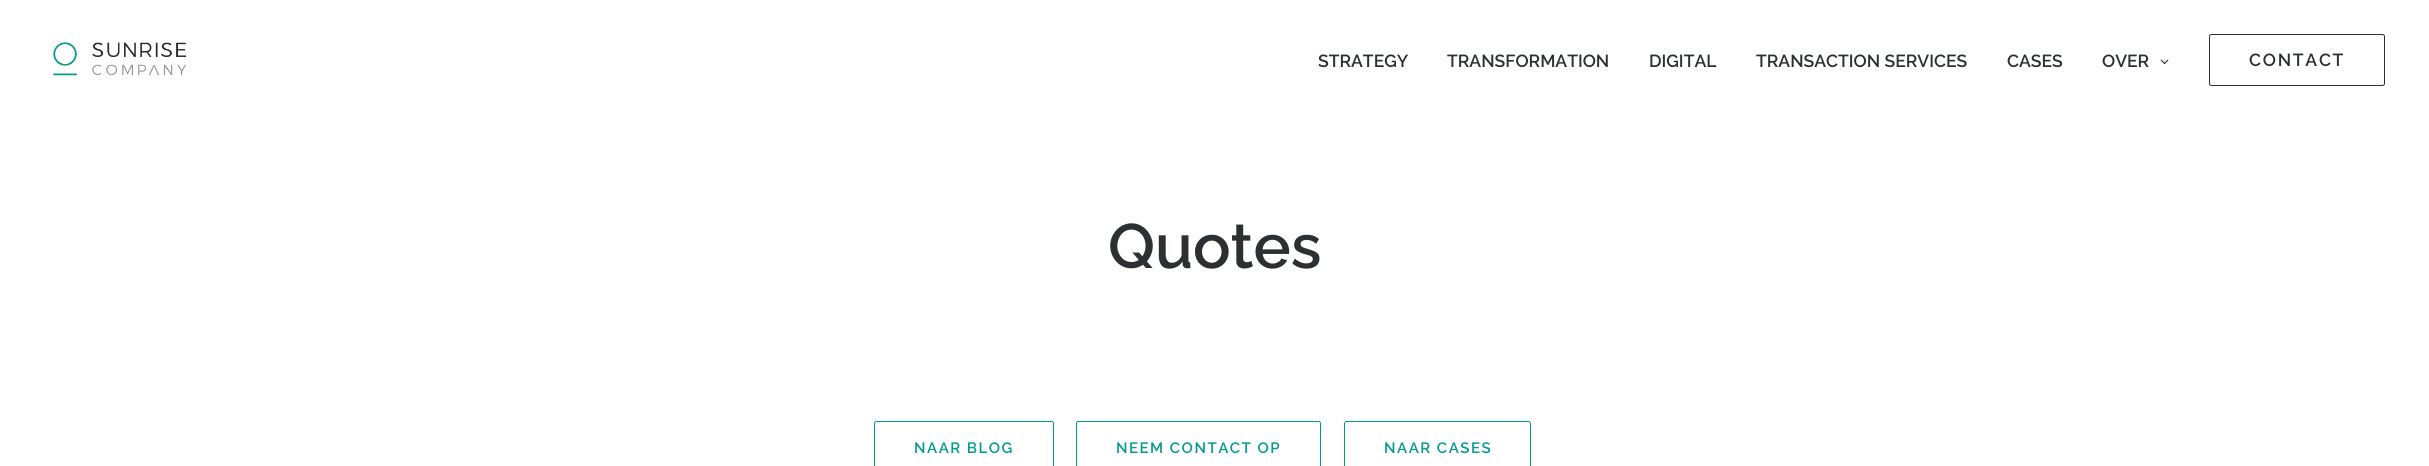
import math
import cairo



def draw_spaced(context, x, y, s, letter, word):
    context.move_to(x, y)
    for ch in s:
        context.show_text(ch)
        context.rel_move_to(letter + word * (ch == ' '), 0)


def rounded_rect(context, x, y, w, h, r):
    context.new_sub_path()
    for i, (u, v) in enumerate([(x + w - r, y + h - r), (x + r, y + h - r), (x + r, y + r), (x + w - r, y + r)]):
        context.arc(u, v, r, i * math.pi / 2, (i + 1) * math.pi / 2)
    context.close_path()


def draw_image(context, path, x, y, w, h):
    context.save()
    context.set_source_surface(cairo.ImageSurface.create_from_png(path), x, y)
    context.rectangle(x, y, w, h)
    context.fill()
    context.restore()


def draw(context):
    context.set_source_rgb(1, 1, 1)
    context.paint()
    draw_image(context, "images/1.png", 53, 42, 134, 34)
    draw_image(context, "images/2.png", 2160, 59, 9, 6)
    rounded_rect(context, 2209.5, 34.5, 175, 51, 2)
    context.set_source_rgb(44 / 255, 48 / 255, 50 / 255)
    context.set_line_width(1)
    context.stroke()
    rounded_rect(context, 874.5, 421.5, 179, 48, 2)
    context.set_source_rgb(4 / 255, 155 / 255, 137 / 255)
    context.stroke()
    rounded_rect(context, 1076.5, 421.5, 244, 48, 2)
    context.stroke()
    rounded_rect(context, 1344.5, 421.5, 186, 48, 2)
    context.stroke()
    context.select_font_face("Raleway SemiBold")
    context.set_font_size(17.5)
    context.set_source_rgb(44 / 255, 48 / 255, 50 / 255)
    context.move_to(1318, 67)
    context.show_text("STRATEGY")
    context.move_to(1447, 67)
    context.show_text("TRANSFORMATION")
    context.move_to(1649, 67)
    context.show_text("DIGITAL")
    context.move_to(1756, 67)
    context.show_text("TRANSACTION SERVICES")
    context.move_to(2007, 67)
    context.show_text("CASES")
    context.move_to(2102, 67)
    context.show_text("OVER")
    draw_spaced(context, 2249, 66, "CONTACT", 1.75, 0)
    context.set_font_size(62.5)
    context.move_to(1108, 268)
    context.show_text("Quotes")
    context.set_font_size(15)
    context.set_source_rgb(4 / 255, 155 / 255, 137 / 255)
    draw_spaced(context, 914, 453, "NAAR BLOG", 1.5, 0)
    draw_spaced(context, 1116, 453, "NEEM CONTACT OP", 1.5, 0)
    draw_spaced(context, 1384, 453, "NAAR CASES", 1.5, 0)


surface = cairo.ImageSurface(cairo.Format.RGB24, 2429, 466)
context = cairo.Context(surface)
options = cairo.FontOptions()
options.set_hint_metrics(cairo.HintMetrics.OFF)
options.set_hint_style(cairo.HintStyle.NONE)
context.set_font_options(options)
context.set_miter_limit(4)
draw(context)
surface.write_to_png("out.png")
